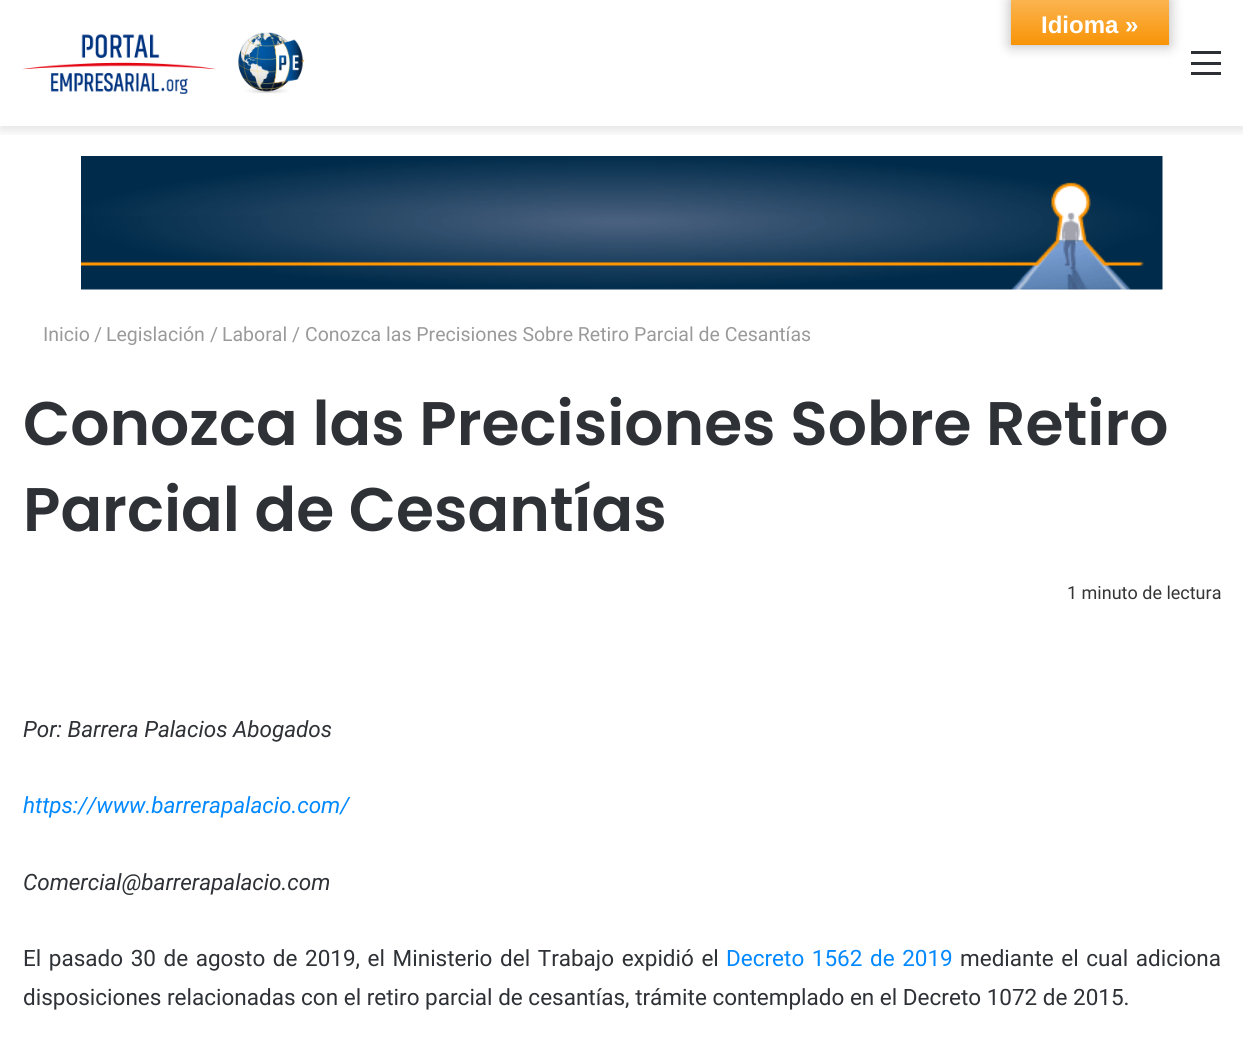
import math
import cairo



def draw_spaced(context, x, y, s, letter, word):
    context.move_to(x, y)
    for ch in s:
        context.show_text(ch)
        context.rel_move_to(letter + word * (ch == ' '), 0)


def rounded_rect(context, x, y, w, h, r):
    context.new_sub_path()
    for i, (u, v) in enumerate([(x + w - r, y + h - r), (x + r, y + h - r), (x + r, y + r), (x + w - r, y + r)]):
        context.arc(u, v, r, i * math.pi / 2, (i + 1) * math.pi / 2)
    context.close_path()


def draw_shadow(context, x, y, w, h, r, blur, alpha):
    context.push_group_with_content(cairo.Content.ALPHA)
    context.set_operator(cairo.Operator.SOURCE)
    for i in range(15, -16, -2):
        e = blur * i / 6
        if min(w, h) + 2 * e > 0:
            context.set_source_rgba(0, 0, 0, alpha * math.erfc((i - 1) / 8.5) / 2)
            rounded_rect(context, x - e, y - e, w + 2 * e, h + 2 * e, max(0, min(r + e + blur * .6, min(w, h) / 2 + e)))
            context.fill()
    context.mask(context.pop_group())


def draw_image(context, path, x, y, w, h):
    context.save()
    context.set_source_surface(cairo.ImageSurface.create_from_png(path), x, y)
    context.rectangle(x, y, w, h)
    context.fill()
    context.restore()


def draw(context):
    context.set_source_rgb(1, 1, 1)
    context.paint()
    context.set_source_rgb(0, 0, 0)
    draw_shadow(context, 1011, 0, 158, 45, 0, 7, 0.3)
    context.save()
    context.rectangle(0, 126, 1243, 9)
    context.clip()
    draw_shadow(context, 0, 5, 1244, 126, 0, 5, 0.1)
    context.restore()
    gradient = cairo.LinearGradient(1090, 0, 1090, 45)
    gradient.add_color_stop_rgba(0, 251 / 255, 180 / 255, 80 / 255, 1)
    gradient.add_color_stop_rgba(1, 248 / 255, 148 / 255, 6 / 255, 1)
    context.set_source(gradient)
    context.rectangle(1011, 0, 158, 45)
    context.fill()
    draw_image(context, "images/1.png", 22, 32, 283, 62)
    context.set_source_rgb(44 / 255, 47 / 255, 52 / 255)
    context.rectangle(1191, 62, 30, 3)
    context.fill()
    context.rectangle(1191, 51, 30, 3)
    context.fill()
    context.rectangle(1191, 72, 30, 3)
    context.fill()
    draw_image(context, "images/2.png", 81, 156, 1082, 134)
    context.select_font_face("Liberation Sans", cairo.FontSlant.NORMAL, cairo.FontWeight.BOLD)
    context.set_font_size(24)
    context.set_source_rgb(1, 1, 1)
    context.move_to(1041, 33)
    context.show_text("Idioma »")
    context.select_font_face("Roboto")
    context.set_font_size(19.5)
    context.set_source_rgb(154 / 255, 154 / 255, 154 / 255)
    context.move_to(43, 341)
    context.show_text("Inicio")
    context.move_to(94, 341)
    context.show_text("/")
    context.move_to(106, 341)
    context.show_text("Legislación")
    context.move_to(210, 341)
    context.show_text("/")
    context.move_to(222, 341)
    context.show_text("Laboral")
    context.move_to(292, 341)
    context.show_text("/")
    context.move_to(305, 341)
    context.show_text("Conozca las Precisiones Sobre Retiro Parcial de Cesantías")
    context.select_font_face("Poppins SemiBold")
    context.set_font_size(61.5)
    context.set_source_rgb(46 / 255, 49 / 255, 54 / 255)
    context.move_to(23, 445)
    context.show_text("Conozca las Precisiones Sobre Retiro")
    context.move_to(23, 531)
    context.show_text("Parcial de Cesantías")
    context.select_font_face("Roboto")
    context.set_font_size(18)
    context.set_source_rgb(53 / 255, 53 / 255, 53 / 255)
    context.move_to(1067, 599)
    context.show_text("1 minuto de lectura")
    context.select_font_face("Roboto", cairo.FontSlant.ITALIC)
    context.set_font_size(22.5)
    context.set_source_rgb(46 / 255, 49 / 255, 54 / 255)
    context.move_to(23, 737)
    context.show_text("Por: Barrera Palacios Abogados")
    context.set_source_rgb(3 / 255, 137 / 255, 1)
    context.move_to(23, 813)
    context.show_text("https://www.barrerapalacio.com/")
    context.set_source_rgb(46 / 255, 49 / 255, 54 / 255)
    context.move_to(23, 890)
    context.show_text("Comercial@barrerapalacio.com")
    context.select_font_face("Roboto")
    draw_spaced(context, 23, 966, "El pasado 30 de agosto de 2019, el Ministerio del Trabajo expidió el", 0, 2)
    context.set_source_rgb(3 / 255, 137 / 255, 1)
    draw_spaced(context, 726, 966, "Decreto 1562 de 2019", 0, 2)
    context.set_source_rgb(46 / 255, 49 / 255, 54 / 255)
    draw_spaced(context, 960, 966, "mediante el cual adiciona", 0, 2)
    context.move_to(23, 1005)
    context.show_text("disposiciones relacionadas con el retiro parcial de cesantías, trámite contemplado en el Decreto 1072 de 2015.")


surface = cairo.ImageSurface(cairo.Format.RGB24, 1243, 1055)
context = cairo.Context(surface)
options = cairo.FontOptions()
options.set_hint_metrics(cairo.HintMetrics.OFF)
options.set_hint_style(cairo.HintStyle.NONE)
context.set_font_options(options)
context.set_miter_limit(4)
draw(context)
surface.write_to_png("out.png")
